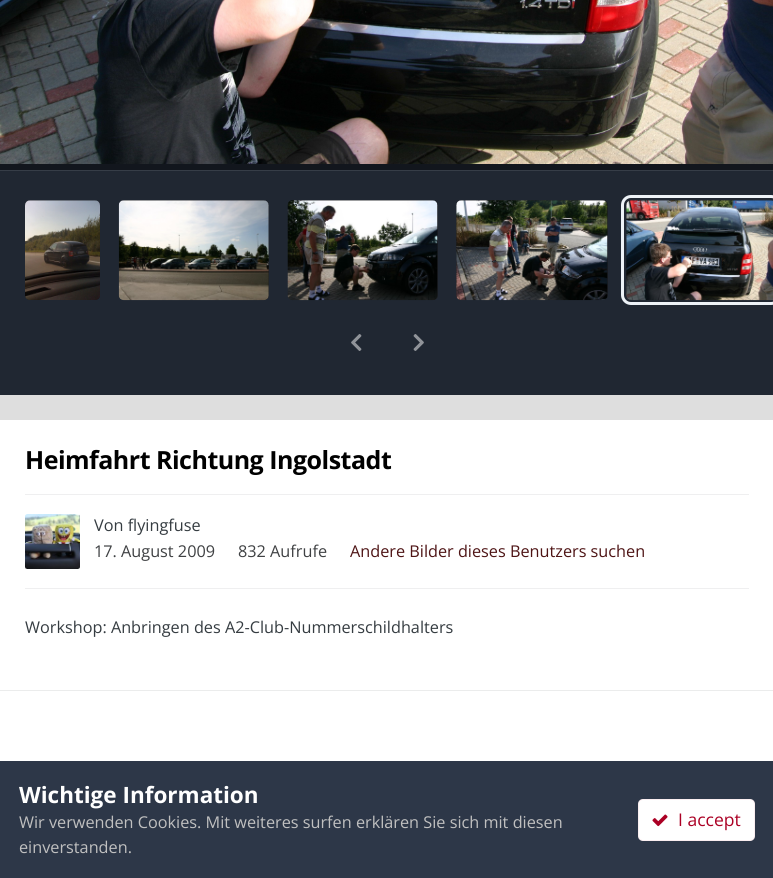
import math
import cairo



def draw_spaced(context, x, y, s, letter, word):
    context.move_to(x, y)
    for ch in s:
        context.show_text(ch)
        context.rel_move_to(letter + word * (ch == ' '), 0)


def rounded_rect(context, x, y, w, h, r):
    context.new_sub_path()
    for i, (u, v) in enumerate([(x + w - r, y + h - r), (x + r, y + h - r), (x + r, y + r), (x + w - r, y + r)]):
        context.arc(u, v, r, i * math.pi / 2, (i + 1) * math.pi / 2)
    context.close_path()


def draw_image(context, path, x, y, w, h):
    context.save()
    context.set_source_surface(cairo.ImageSurface.create_from_png(path), x, y)
    context.rectangle(x, y, w, h)
    context.fill()
    context.restore()


def draw(context):
    context.set_source_rgb(222 / 255, 222 / 255, 222 / 255)
    context.paint()
    context.set_source_rgb(18 / 255, 22 / 255, 29 / 255)
    context.rectangle(0, 164, 773, 6)
    context.fill()
    draw_image(context, "images/1.png", 0, 0, 773, 164)
    context.set_source_rgb(32 / 255, 39 / 255, 50 / 255)
    context.rectangle(0, 171, 773, 224)
    context.fill()
    context.set_source_rgb(54 / 255, 61 / 255, 71 / 255)
    context.rectangle(0, 170, 773, 1)
    context.fill()
    context.set_source_rgb(20 / 255, 20 / 255, 20 / 255)
    rounded_rect(context, 25, 200, 75, 100, 5)
    context.fill()
    context.set_source_rgba(45 / 255, 55 / 255, 72 / 255, 0.3)
    rounded_rect(context, 25, 200, 75, 100, 5)
    context.fill()
    draw_image(context, "images/2.png", 25, 200, 75, 100)
    context.set_source_rgb(20 / 255, 20 / 255, 20 / 255)
    rounded_rect(context, 119, 200, 150, 100, 5)
    context.fill()
    context.set_source_rgba(45 / 255, 55 / 255, 72 / 255, 0.3)
    rounded_rect(context, 119, 200, 150, 100, 5)
    context.fill()
    draw_image(context, "images/3.png", 118, 200, 151, 101)
    context.set_source_rgb(20 / 255, 20 / 255, 20 / 255)
    rounded_rect(context, 288, 200, 150, 100, 5)
    context.fill()
    context.set_source_rgba(45 / 255, 55 / 255, 72 / 255, 0.3)
    rounded_rect(context, 288, 200, 150, 100, 5)
    context.fill()
    draw_image(context, "images/4.png", 287, 200, 151, 101)
    context.set_source_rgb(20 / 255, 20 / 255, 20 / 255)
    rounded_rect(context, 456, 200, 152, 100, 5)
    context.fill()
    context.set_source_rgba(45 / 255, 55 / 255, 72 / 255, 0.3)
    rounded_rect(context, 456, 200, 152, 100, 5)
    context.fill()
    draw_image(context, "images/5.png", 456, 200, 152, 101)
    context.set_source_rgb(20 / 255, 20 / 255, 20 / 255)
    rounded_rect(context, 626, 200, 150, 100, 5)
    context.fill()
    context.set_source_rgba(45 / 255, 55 / 255, 72 / 255, 0.3)
    rounded_rect(context, 626, 200, 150, 100, 5)
    context.fill()
    rounded_rect(context, 622.5, 196.5, 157, 107, 8.5)
    context.set_source_rgb(237 / 255, 242 / 255, 247 / 255)
    context.set_line_width(3)
    context.stroke()
    draw_image(context, "images/6.png", 626, 200, 147, 101)
    draw_image(context, "images/7.png", 351, 334, 11, 17)
    draw_image(context, "images/8.png", 413, 334, 11, 17)
    context.set_source_rgb(1, 1, 1)
    context.rectangle(0, 420, 773, 341)
    context.fill()
    context.set_source_rgb(239 / 255, 239 / 255, 240 / 255)
    context.rectangle(25, 494, 724, 1)
    context.fill()
    draw_image(context, "images/9.png", 25, 514, 55, 55)
    context.rectangle(25, 588, 724, 1)
    context.fill()
    context.set_source_rgb(235 / 255, 236 / 255, 236 / 255)
    context.rectangle(0, 690, 773, 1)
    context.fill()
    context.set_source_rgb(45 / 255, 55 / 255, 72 / 255)
    context.rectangle(0, 761, 773, 117)
    context.fill()
    context.set_source_rgb(1, 1, 1)
    rounded_rect(context, 638, 799, 117, 42, 5)
    context.fill()
    rounded_rect(context, 638.5, 799.5, 116, 41, 4.5)
    context.set_source_rgba(171 / 255, 0, 36 / 255, 0.07)
    context.set_line_width(1)
    context.stroke()
    draw_image(context, "images/10.png", 652, 814, 16, 13)
    context.select_font_face("Open Sans", cairo.FontSlant.NORMAL, cairo.FontWeight.BOLD)
    context.set_font_size(25)
    context.set_source_rgb(0, 0, 0)
    draw_spaced(context, 25, 469, "Heimfahrt Richtung Ingolstadt", -0.5, 0)
    context.select_font_face("Open Sans")
    context.set_font_size(16.25)
    context.set_source_rgb(53 / 255, 60 / 255, 65 / 255)
    context.move_to(94, 531)
    context.show_text("Von flyingfuse")
    context.set_source_rgb(63 / 255, 65 / 255, 67 / 255)
    context.move_to(94, 557)
    context.show_text("17. August 2009")
    context.move_to(238, 557)
    context.show_text("832 Aufrufe")
    context.set_source_rgb(78 / 255, 20 / 255, 21 / 255)
    context.move_to(350, 557)
    context.show_text("Andere Bilder dieses Benutzers suchen")
    context.set_source_rgb(53 / 255, 60 / 255, 65 / 255)
    context.move_to(25, 633)
    context.show_text("Workshop: Anbringen des A2-Club-Nummerschildhalters")
    context.select_font_face("Open Sans", cairo.FontSlant.NORMAL, cairo.FontWeight.BOLD)
    context.set_font_size(22.5)
    context.set_source_rgb(1, 1, 1)
    context.move_to(19, 803)
    context.show_text("Wichtige Information")
    context.select_font_face("Open Sans")
    context.set_font_size(16.25)
    context.set_source_rgb(192 / 255, 192 / 255, 192 / 255)
    context.move_to(19, 828)
    context.show_text("Wir verwenden Cookies. Mit weiteres surfen erklären Sie sich mit diesen")
    context.move_to(19, 853)
    context.show_text("einverstanden.")
    context.set_font_size(17.5)
    context.set_source_rgb(171 / 255, 0, 36 / 255)
    context.move_to(678, 826)
    context.show_text("I accept")


surface = cairo.ImageSurface(cairo.Format.RGB24, 773, 878)
context = cairo.Context(surface)
options = cairo.FontOptions()
options.set_hint_metrics(cairo.HintMetrics.OFF)
options.set_hint_style(cairo.HintStyle.NONE)
context.set_font_options(options)
context.set_miter_limit(4)
draw(context)
surface.write_to_png("out.png")
